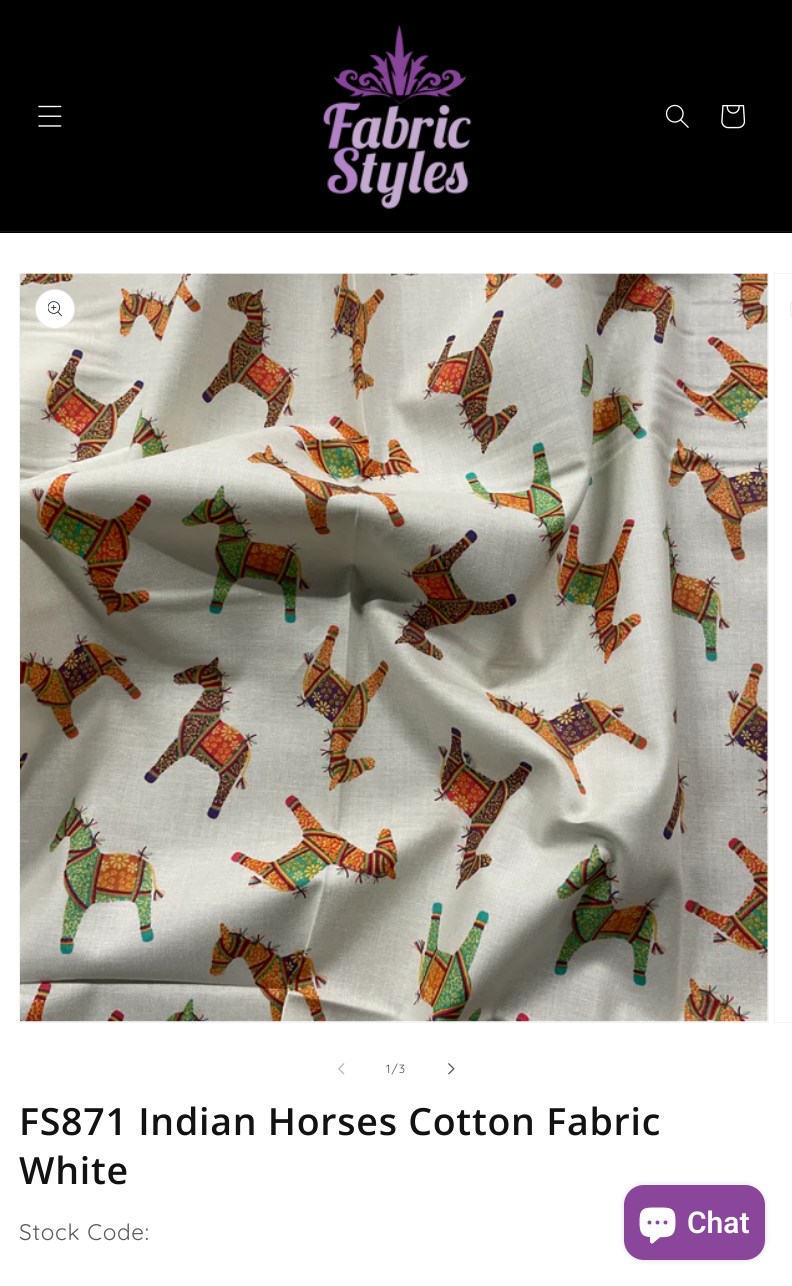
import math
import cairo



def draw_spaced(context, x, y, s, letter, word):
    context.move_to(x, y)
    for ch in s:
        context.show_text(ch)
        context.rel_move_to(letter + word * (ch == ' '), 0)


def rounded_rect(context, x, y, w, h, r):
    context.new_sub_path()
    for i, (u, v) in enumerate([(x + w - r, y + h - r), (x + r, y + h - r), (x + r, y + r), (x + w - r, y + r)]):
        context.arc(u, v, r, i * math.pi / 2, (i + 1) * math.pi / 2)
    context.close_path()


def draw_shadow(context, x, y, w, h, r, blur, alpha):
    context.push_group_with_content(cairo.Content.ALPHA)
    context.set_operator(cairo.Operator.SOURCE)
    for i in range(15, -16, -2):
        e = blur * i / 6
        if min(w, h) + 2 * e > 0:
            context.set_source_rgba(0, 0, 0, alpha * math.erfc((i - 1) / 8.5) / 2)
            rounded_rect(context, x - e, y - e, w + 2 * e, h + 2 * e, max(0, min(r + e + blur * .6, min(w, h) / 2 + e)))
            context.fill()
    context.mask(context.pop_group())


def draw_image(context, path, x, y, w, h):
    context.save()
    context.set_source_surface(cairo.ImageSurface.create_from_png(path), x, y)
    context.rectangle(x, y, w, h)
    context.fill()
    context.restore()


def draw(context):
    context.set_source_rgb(1, 1, 1)
    context.paint()
    context.set_source_rgb(0, 0, 0)
    context.rectangle(0, 0, 792, 233)
    context.fill()
    context.set_source_rgb(20 / 255, 20 / 255, 20 / 255)
    context.rectangle(0, 231, 792, 1)
    context.fill()
    draw_image(context, "images/1.png", 38, 105, 24, 22)
    draw_image(context, "images/2.png", 322, 25, 150, 184)
    draw_image(context, "images/3.png", 665, 104, 24, 24)
    draw_image(context, "images/4.png", 721, 105, 25, 24)
    context.rectangle(19.5, 273.5, 749, 749)
    context.set_source_rgb(243 / 255, 243 / 255, 243 / 255)
    context.set_line_width(1)
    context.stroke()
    draw_image(context, "images/5.png", 20, 273, 748, 749)
    context.set_source_rgb(1, 1, 1)
    context.arc(55, 309, 20, 0, 2 * math.pi)
    context.fill()
    context.arc(55, 309, 19.5, 0, 2 * math.pi)
    context.set_source_rgba(18 / 255, 18 / 255, 18 / 255, 0.1)
    context.stroke()
    draw_image(context, "images/6.png", 48, 301, 14, 16)
    context.rectangle(774.5, 273.5, 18, 749)
    context.set_source_rgb(243 / 255, 243 / 255, 243 / 255)
    context.stroke()
    rounded_rect(context, 790.5, 289.5, 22, 39, 19.5)
    context.set_source_rgb(231 / 255, 231 / 255, 231 / 255)
    context.stroke()
    draw_image(context, "images/7.png", 338, 1063, 7, 12)
    draw_image(context, "images/8.png", 448, 1063, 7, 12)
    context.set_source_rgb(0, 0, 0)
    draw_shadow(context, 624, 1185, 141, 75, 20, 3, 0.15)
    context.set_source_rgb(137 / 255, 70 / 255, 155 / 255)
    rounded_rect(context, 624, 1185, 141, 75, 20)
    context.fill()
    draw_image(context, "images/9.png", 639, 1207, 37, 37)
    context.select_font_face("Quicksand")
    context.set_font_size(12)
    context.set_source_rgb(77 / 255, 77 / 255, 77 / 255)
    draw_spaced(context, 386, 1073, "1/3", 1, 0)
    context.select_font_face("Open Sans SemiBold")
    context.set_font_size(37.5)
    context.set_source_rgb(18 / 255, 18 / 255, 18 / 255)
    draw_spaced(context, 19, 1135, "FS871 Indian Horses Cotton Fabric", 0.75, 0)
    draw_spaced(context, 19, 1184, "White", 0.75, 0)
    context.select_font_face("Quicksand")
    context.set_font_size(22.5)
    context.set_source_rgb(89 / 255, 89 / 255, 89 / 255)
    draw_spaced(context, 19, 1240, "Stock Code:", 0.75, 0)
    context.select_font_face("Roboto SemiBold")
    context.set_font_size(30)
    context.set_source_rgb(1, 1, 1)
    context.move_to(687, 1233)
    context.show_text("Chat")


surface = cairo.ImageSurface(cairo.Format.RGB24, 792, 1286)
context = cairo.Context(surface)
options = cairo.FontOptions()
options.set_hint_metrics(cairo.HintMetrics.OFF)
options.set_hint_style(cairo.HintStyle.NONE)
context.set_font_options(options)
context.set_miter_limit(4)
draw(context)
surface.write_to_png("out.png")
